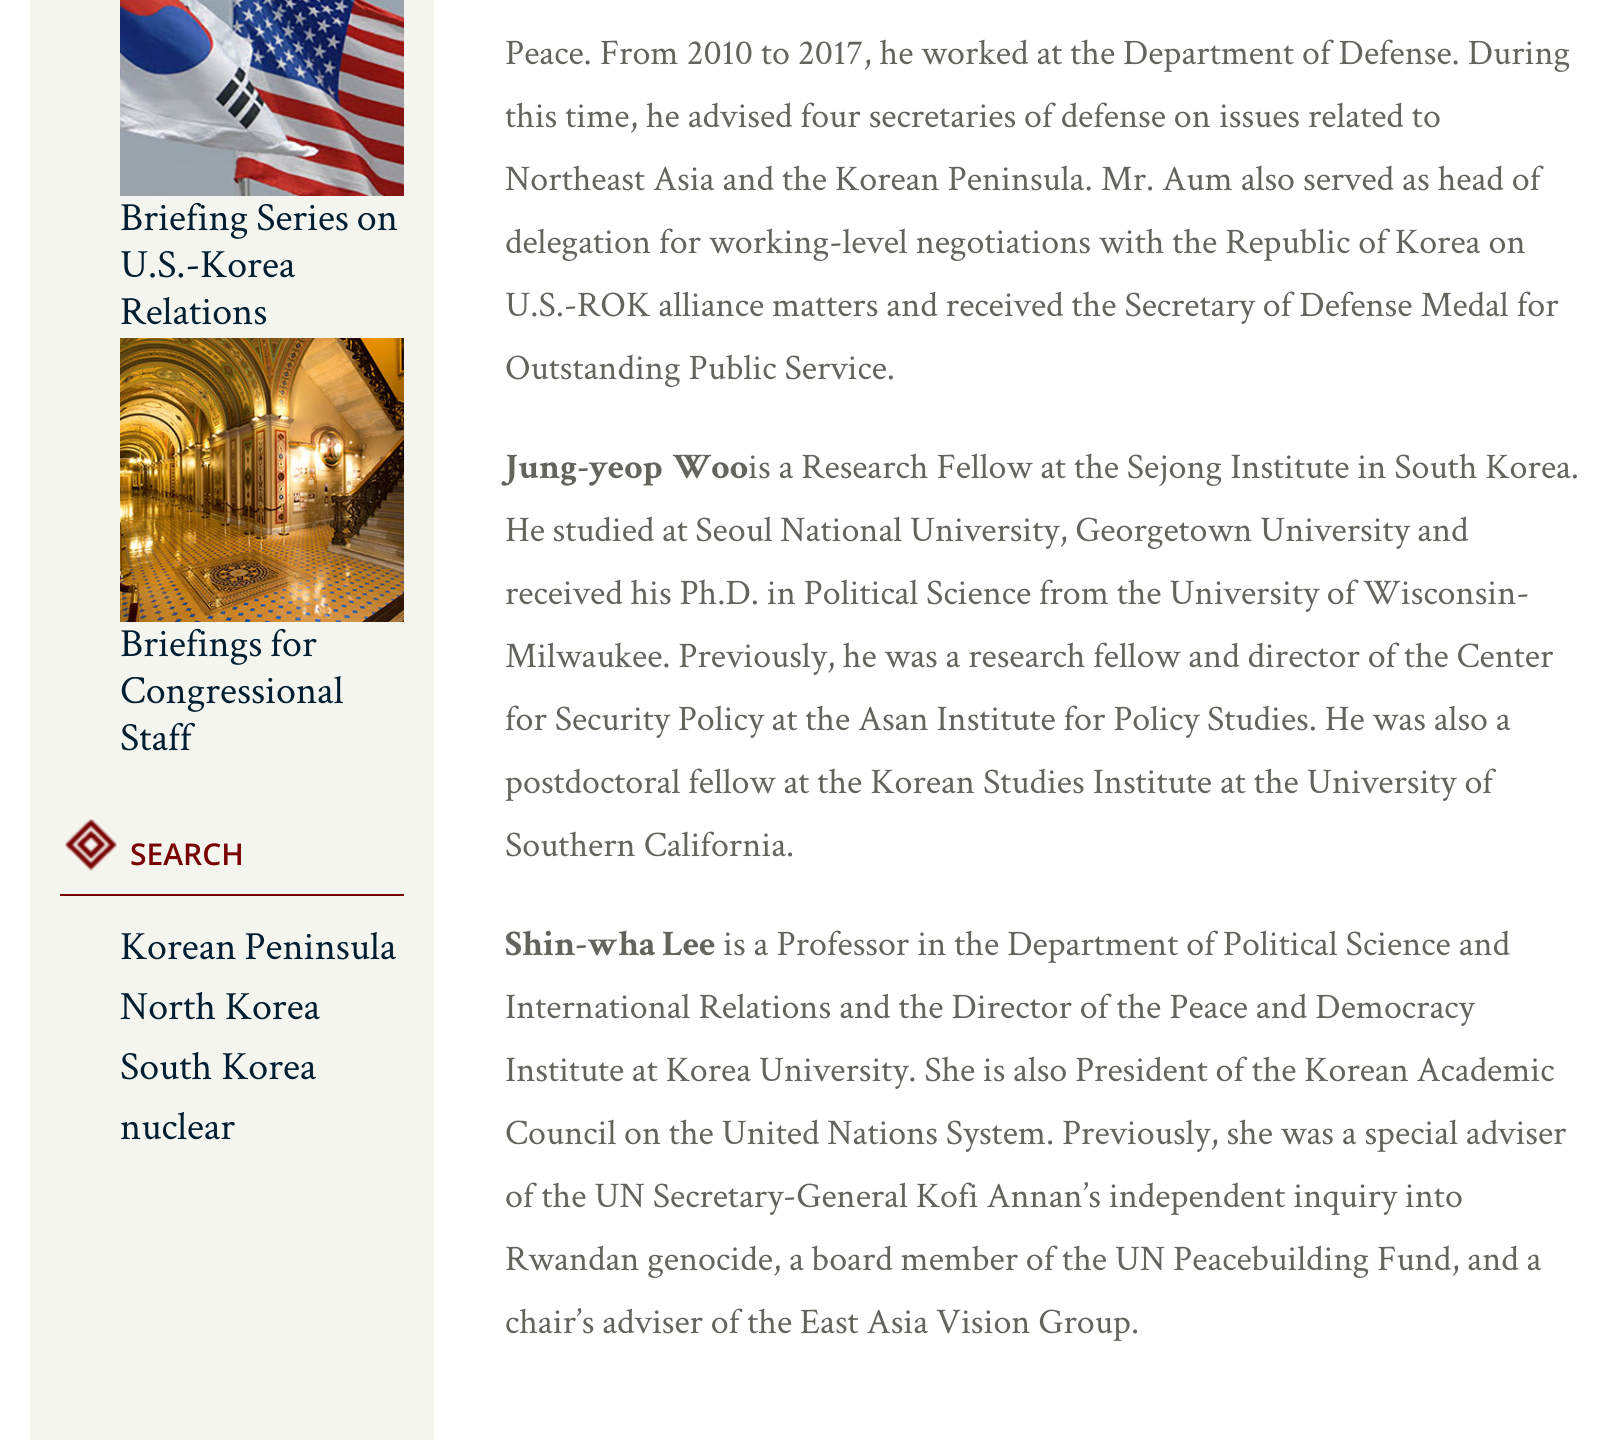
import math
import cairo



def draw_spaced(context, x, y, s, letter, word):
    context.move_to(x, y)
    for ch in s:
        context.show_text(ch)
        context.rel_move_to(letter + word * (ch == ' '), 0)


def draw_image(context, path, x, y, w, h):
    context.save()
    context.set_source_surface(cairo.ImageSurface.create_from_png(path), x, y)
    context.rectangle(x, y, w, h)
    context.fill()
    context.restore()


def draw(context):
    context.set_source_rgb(1, 1, 1)
    context.paint()
    context.set_source_rgb(245 / 255, 245 / 255, 240 / 255)
    context.rectangle(30, 0, 404, 1440)
    context.fill()
    draw_image(context, "images/1.png", 120, 0, 284, 196)
    draw_image(context, "images/2.png", 120, 338, 284, 284)
    draw_image(context, "images/3.png", 65, 819, 52, 52)
    context.set_source_rgb(120 / 255, 0, 0)
    context.rectangle(60, 894, 344, 2)
    context.fill()
    context.select_font_face("Crimson Text")
    context.set_font_size(40)
    context.set_source_rgb(0, 30 / 255, 50 / 255)
    draw_spaced(context, 120, 230, "Briefing Series on", 0, -1)
    context.move_to(120, 277)
    context.show_text("U.S.-Korea")
    context.move_to(120, 324)
    context.show_text("Relations")
    draw_spaced(context, 120, 656, "Briefings for", 0, -1)
    context.move_to(120, 703)
    context.show_text("Congressional")
    context.move_to(120, 750)
    context.show_text("Staff")
    context.select_font_face("Open Sans SemiBold")
    context.set_font_size(30)
    context.set_source_rgb(120 / 255, 0, 0)
    context.move_to(130, 865)
    context.show_text("SEARCH")
    context.select_font_face("Crimson Text")
    context.set_font_size(40)
    context.set_source_rgb(0, 30 / 255, 50 / 255)
    draw_spaced(context, 120, 959, "Korean Peninsula", 0, -1)
    context.move_to(120, 1019)
    context.show_text("North Korea")
    context.move_to(120, 1079)
    context.show_text("South Korea")
    context.move_to(120, 1139)
    context.show_text("nuclear")
    context.set_font_size(36)
    context.set_source_rgb(100 / 255, 100 / 255, 95 / 255)
    draw_spaced(context, 505, 64, "Peace. From 2010 to 2017, he worked at the Department of Defense. During", 0, -0.1)
    context.move_to(505, 127)
    context.show_text("this time, he advised four secretaries of defense on issues related to")
    context.move_to(505, 190)
    context.show_text("Northeast Asia and the Korean Peninsula. Mr. Aum also served as head of")
    context.move_to(505, 253)
    context.show_text("delegation for working-level negotiations with the Republic of Korea on")
    context.move_to(505, 316)
    context.show_text("U.S.-ROK alliance matters and received the Secretary of Defense Medal for")
    context.move_to(505, 379)
    context.show_text("Outstanding Public Service.")
    context.select_font_face("Crimson Text", cairo.FontSlant.NORMAL, cairo.FontWeight.BOLD)
    draw_spaced(context, 505, 478, "Jung-yeop Woo", 0, 3)
    context.select_font_face("Crimson Text")
    draw_spaced(context, 748, 478, "is a Research Fellow at the Sejong Institute in South Korea.", 0, -0.1)
    draw_spaced(context, 505, 541, "He studied at Seoul National University, Georgetown University and", 0, -0.5)
    draw_spaced(context, 505, 604, "received his Ph.D. in Political Science from the University of Wisconsin-", 0, -0.25)
    draw_spaced(context, 505, 667, "Milwaukee. Previously, he was a research fellow and director of the Center", 0, -0.25)
    draw_spaced(context, 505, 730, "for Security Policy at the Asan Institute for Policy Studies. He was also a", 0, -0.2)
    context.move_to(505, 793)
    context.show_text("postdoctoral fellow at the Korean Studies Institute at the University of")
    context.move_to(505, 856)
    context.show_text("Southern California.")
    context.select_font_face("Crimson Text", cairo.FontSlant.NORMAL, cairo.FontWeight.BOLD)
    draw_spaced(context, 505, 955, "Shin-wha Lee", 0, -1)
    context.select_font_face("Crimson Text")
    context.move_to(723, 955)
    context.show_text("is a Professor in the Department of Political Science and")
    context.move_to(505, 1018)
    context.show_text("International Relations and the Director of the Peace and Democracy")
    draw_spaced(context, 505, 1081, "Institute at Korea University. She is also President of the Korean Academic", 0, -0.4)
    draw_spaced(context, 505, 1144, "Council on the United Nations System. Previously, she was a special adviser", 0, -0.25)
    draw_spaced(context, 505, 1207, "of the UN Secretary-General Kofi Annan’s independent inquiry into", 0, -0.1)
    draw_spaced(context, 505, 1270, "Rwandan genocide, a board member of the UN Peacebuilding Fund, and a", 0, -0.25)
    draw_spaced(context, 505, 1333, "chair’s adviser of the East Asia Vision Group.", 0, -0.1)


surface = cairo.ImageSurface(cairo.Format.RGB24, 1615, 1440)
context = cairo.Context(surface)
options = cairo.FontOptions()
options.set_hint_metrics(cairo.HintMetrics.OFF)
options.set_hint_style(cairo.HintStyle.NONE)
context.set_font_options(options)
context.set_miter_limit(4)
draw(context)
surface.write_to_png("out.png")
